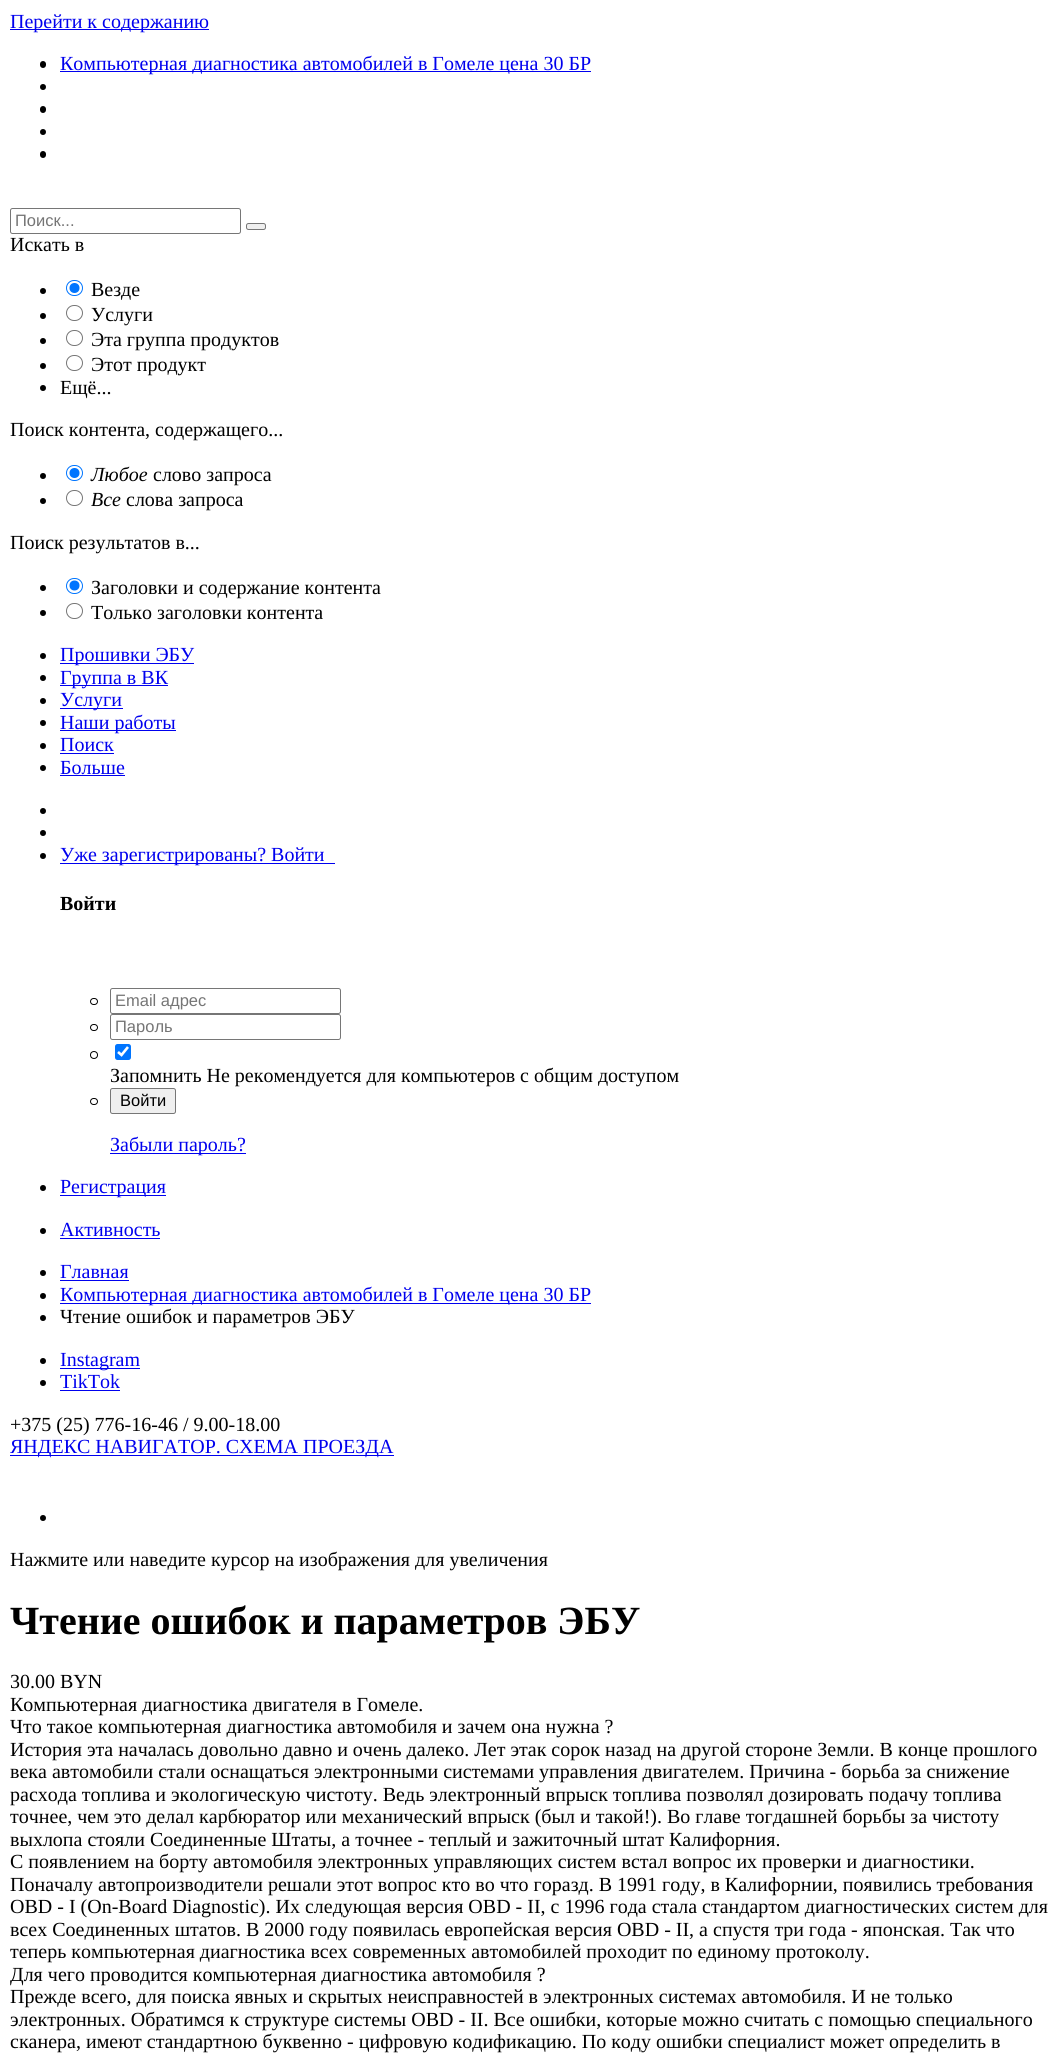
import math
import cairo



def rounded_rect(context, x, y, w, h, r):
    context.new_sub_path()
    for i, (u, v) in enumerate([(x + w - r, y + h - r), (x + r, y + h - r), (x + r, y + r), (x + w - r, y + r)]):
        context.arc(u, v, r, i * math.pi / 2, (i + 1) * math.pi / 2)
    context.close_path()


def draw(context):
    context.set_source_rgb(1, 1, 1)
    context.paint()
    context.set_source_rgb(0, 0, 238 / 255)
    context.rectangle(10, 29, 199, 1)
    context.fill()
    context.set_source_rgb(0, 0, 0)
    rounded_rect(context, 40, 61, 6, 7, 3)
    context.fill()
    context.set_source_rgb(0, 0, 238 / 255)
    context.rectangle(60, 71, 531, 1)
    context.fill()
    context.set_source_rgb(0, 0, 0)
    context.arc(43, 87, 3, 0, 2 * math.pi)
    context.fill()
    rounded_rect(context, 40, 106, 6, 7, 3)
    context.fill()
    context.arc(43, 132, 3, 0, 2 * math.pi)
    context.fill()
    rounded_rect(context, 40, 151, 6, 7, 3)
    context.fill()
    rounded_rect(context, 10.5, 208.5, 230, 25, 2)
    context.set_source_rgb(118 / 255, 118 / 255, 118 / 255)
    context.set_line_width(1)
    context.stroke()
    context.set_source_rgb(239 / 255, 239 / 255, 239 / 255)
    rounded_rect(context, 246.5, 223.5, 19, 6, 2)
    context.fill_preserve()
    context.set_source_rgb(118 / 255, 118 / 255, 118 / 255)
    context.stroke()
    context.set_source_rgb(0, 0, 0)
    context.arc(43, 291, 3, 0, 2 * math.pi)
    context.fill()
    rounded_rect(context, 66.5, 280.5, 16, 15, 7.5)
    context.set_source_rgb(0, 117 / 255, 1)
    context.stroke()
    context.arc(74.5, 288, 5, 0, 2 * math.pi)
    context.fill()
    context.set_source_rgb(0, 0, 0)
    context.arc(43, 316, 3, 0, 2 * math.pi)
    context.fill()
    rounded_rect(context, 66.5, 305.5, 16, 15, 7.5)
    context.set_source_rgb(118 / 255, 118 / 255, 118 / 255)
    context.stroke()
    context.set_source_rgb(0, 0, 0)
    context.arc(43, 341, 3, 0, 2 * math.pi)
    context.fill()
    rounded_rect(context, 66.5, 330.5, 16, 15, 7.5)
    context.set_source_rgb(118 / 255, 118 / 255, 118 / 255)
    context.stroke()
    context.set_source_rgb(0, 0, 0)
    context.arc(43, 366, 3, 0, 2 * math.pi)
    context.fill()
    rounded_rect(context, 66.5, 355.5, 16, 15, 7.5)
    context.set_source_rgb(118 / 255, 118 / 255, 118 / 255)
    context.stroke()
    context.set_source_rgb(0, 0, 0)
    context.arc(43, 388, 3, 0, 2 * math.pi)
    context.fill()
    context.arc(43, 476, 3, 0, 2 * math.pi)
    context.fill()
    rounded_rect(context, 66.5, 465.5, 16, 15, 7.5)
    context.set_source_rgb(0, 117 / 255, 1)
    context.stroke()
    context.arc(74.5, 473, 5, 0, 2 * math.pi)
    context.fill()
    context.set_source_rgb(0, 0, 0)
    context.arc(43, 501, 3, 0, 2 * math.pi)
    context.fill()
    rounded_rect(context, 66.5, 490.5, 16, 15, 7.5)
    context.set_source_rgb(118 / 255, 118 / 255, 118 / 255)
    context.stroke()
    context.set_source_rgb(0, 0, 0)
    context.arc(43, 588, 3, 0, 2 * math.pi)
    context.fill()
    rounded_rect(context, 66.5, 578.5, 16, 15, 7.5)
    context.set_source_rgb(0, 117 / 255, 1)
    context.stroke()
    context.arc(74.5, 585.5, 5, 0, 2 * math.pi)
    context.fill()
    context.set_source_rgb(0, 0, 0)
    context.arc(43, 613, 3, 0, 2 * math.pi)
    context.fill()
    rounded_rect(context, 66.5, 603.5, 16, 15, 7.5)
    context.set_source_rgb(118 / 255, 118 / 255, 118 / 255)
    context.stroke()
    context.set_source_rgb(0, 0, 0)
    context.arc(43, 656, 3, 0, 2 * math.pi)
    context.fill()
    context.set_source_rgb(0, 0, 238 / 255)
    context.rectangle(60, 663, 134, 1)
    context.fill()
    context.set_source_rgb(0, 0, 0)
    context.arc(43, 678, 3, 0, 2 * math.pi)
    context.fill()
    context.set_source_rgb(0, 0, 238 / 255)
    context.rectangle(60, 685, 108, 1)
    context.fill()
    context.set_source_rgb(0, 0, 0)
    context.arc(43, 701, 3, 0, 2 * math.pi)
    context.fill()
    context.set_source_rgb(0, 0, 238 / 255)
    context.rectangle(60, 708, 63, 1)
    context.fill()
    context.set_source_rgb(0, 0, 0)
    context.arc(43, 723, 3, 0, 2 * math.pi)
    context.fill()
    context.set_source_rgb(0, 0, 238 / 255)
    context.rectangle(60, 730, 116, 1)
    context.fill()
    context.set_source_rgb(0, 0, 0)
    context.arc(43, 746, 3, 0, 2 * math.pi)
    context.fill()
    context.set_source_rgb(0, 0, 238 / 255)
    context.rectangle(60, 753, 54, 1)
    context.fill()
    context.set_source_rgb(0, 0, 0)
    context.arc(43, 768, 3, 0, 2 * math.pi)
    context.fill()
    context.set_source_rgb(0, 0, 238 / 255)
    context.rectangle(60, 775, 65, 1)
    context.fill()
    context.set_source_rgb(0, 0, 0)
    context.arc(43, 811, 3, 0, 2 * math.pi)
    context.fill()
    context.arc(43, 833, 3, 0, 2 * math.pi)
    context.fill()
    context.arc(43, 856, 3, 0, 2 * math.pi)
    context.fill()
    context.set_source_rgb(0, 0, 238 / 255)
    context.rectangle(60, 863, 275, 1)
    context.fill()
    rounded_rect(context, 90.5, 998.5, 7, 6, 3)
    context.set_source_rgb(0, 0, 0)
    context.stroke()
    rounded_rect(context, 110.5, 988.5, 230, 25, 2)
    context.set_source_rgb(118 / 255, 118 / 255, 118 / 255)
    context.stroke()
    rounded_rect(context, 90.5, 1024.5, 7, 6, 3)
    context.set_source_rgb(0, 0, 0)
    context.stroke()
    rounded_rect(context, 110.5, 1014.5, 230, 25, 2)
    context.set_source_rgb(118 / 255, 118 / 255, 118 / 255)
    context.stroke()
    context.arc(94, 1055, 3.5, 0, 2 * math.pi)
    context.set_source_rgb(0, 0, 0)
    context.stroke()
    context.set_source_rgb(0, 117 / 255, 1)
    rounded_rect(context, 115, 1044, 16, 16, 2.5)
    context.fill()
    context.new_path()
    context.move_to(118, 1052)
    context.line_to(121.5, 1055)
    context.line_to(128, 1047)
    context.set_source_rgb(1, 1, 1)
    context.set_line_width(2.6)
    context.stroke()
    rounded_rect(context, 90.5, 1098.5, 7, 6, 3)
    context.set_source_rgb(0, 0, 0)
    context.set_line_width(1)
    context.stroke()
    context.set_source_rgb(239 / 255, 239 / 255, 239 / 255)
    rounded_rect(context, 110.5, 1088.5, 65, 25, 2)
    context.fill_preserve()
    context.set_source_rgb(118 / 255, 118 / 255, 118 / 255)
    context.stroke()
    context.set_source_rgb(0, 0, 238 / 255)
    context.rectangle(110, 1153, 136, 1)
    context.fill()
    context.set_source_rgb(0, 0, 0)
    context.arc(43, 1188, 3, 0, 2 * math.pi)
    context.fill()
    context.set_source_rgb(0, 0, 238 / 255)
    context.rectangle(60, 1195, 106, 1)
    context.fill()
    context.set_source_rgb(0, 0, 0)
    context.arc(43, 1231, 3, 0, 2 * math.pi)
    context.fill()
    context.set_source_rgb(0, 0, 238 / 255)
    context.rectangle(60, 1238, 100, 1)
    context.fill()
    context.set_source_rgb(0, 0, 0)
    context.arc(43, 1273, 3, 0, 2 * math.pi)
    context.fill()
    context.set_source_rgb(0, 0, 238 / 255)
    context.rectangle(60, 1280, 69, 1)
    context.fill()
    context.set_source_rgb(0, 0, 0)
    context.arc(43, 1296, 3, 0, 2 * math.pi)
    context.fill()
    context.set_source_rgb(0, 0, 238 / 255)
    context.rectangle(60, 1303, 531, 1)
    context.fill()
    context.set_source_rgb(0, 0, 0)
    context.arc(43, 1318, 3, 0, 2 * math.pi)
    context.fill()
    context.arc(43, 1361, 3, 0, 2 * math.pi)
    context.fill()
    context.set_source_rgb(0, 0, 238 / 255)
    context.rectangle(60, 1368, 80, 1)
    context.fill()
    context.set_source_rgb(0, 0, 0)
    context.arc(43, 1383, 3, 0, 2 * math.pi)
    context.fill()
    context.set_source_rgb(0, 0, 238 / 255)
    context.rectangle(60, 1390, 60, 1)
    context.fill()
    context.rectangle(10, 1455, 384, 1)
    context.fill()
    context.set_source_rgb(0, 0, 0)
    context.arc(43, 1518, 3, 0, 2 * math.pi)
    context.fill()
    context.select_font_face("Liberation Serif")
    context.set_font_size(20)
    context.set_source_rgb(0, 0, 238 / 255)
    context.move_to(10, 28)
    context.show_text("Перейти к содержанию")
    context.move_to(60, 70)
    context.show_text("Компьютерная диагностика автомобилей в Гомеле цена 30 БР")
    context.select_font_face("Liberation Sans")
    context.set_font_size(16.5)
    context.set_source_rgb(117 / 255, 117 / 255, 117 / 255)
    context.move_to(15, 226)
    context.show_text("Поиск...")
    context.select_font_face("Liberation Serif")
    context.set_font_size(20)
    context.set_source_rgb(0, 0, 0)
    context.move_to(10, 251)
    context.show_text("Искать в")
    context.move_to(91, 296)
    context.show_text("Везде")
    context.move_to(91, 321)
    context.show_text("Услуги")
    context.move_to(91, 346)
    context.show_text("Эта группа продуктов")
    context.move_to(91, 371)
    context.show_text("Этот продукт")
    context.move_to(60, 394)
    context.show_text("Ещё...")
    context.move_to(10, 436)
    context.show_text("Поиск контента, содержащего...")
    context.select_font_face("Liberation Serif", cairo.FontSlant.ITALIC)
    context.move_to(91, 481)
    context.show_text("Любое")
    context.select_font_face("Liberation Serif")
    context.move_to(153, 481)
    context.show_text("слово запроса")
    context.select_font_face("Liberation Serif", cairo.FontSlant.ITALIC)
    context.move_to(91, 506)
    context.show_text("Все")
    context.select_font_face("Liberation Serif")
    context.move_to(126, 506)
    context.show_text("слова запроса")
    context.move_to(10, 549)
    context.show_text("Поиск результатов в...")
    context.move_to(91, 594)
    context.show_text("Заголовки и содержание контента")
    context.move_to(91, 619)
    context.show_text("Только заголовки контента")
    context.set_source_rgb(0, 0, 238 / 255)
    context.move_to(60, 661)
    context.show_text("Прошивки ЭБУ")
    context.move_to(60, 684)
    context.show_text("Группа в ВК")
    context.move_to(60, 706)
    context.show_text("Услуги")
    context.move_to(60, 729)
    context.show_text("Наши работы")
    context.move_to(60, 751)
    context.show_text("Поиск")
    context.move_to(60, 774)
    context.show_text("Больше")
    context.move_to(60, 861)
    context.show_text("Уже зарегистрированы? Войти")
    context.select_font_face("Liberation Serif", cairo.FontSlant.NORMAL, cairo.FontWeight.BOLD)
    context.set_source_rgb(0, 0, 0)
    context.move_to(60, 910)
    context.show_text("Войти")
    context.select_font_face("Liberation Sans")
    context.set_font_size(16.5)
    context.set_source_rgb(117 / 255, 117 / 255, 117 / 255)
    context.move_to(115, 1006)
    context.show_text("Email адрес")
    context.move_to(115, 1032)
    context.show_text("Пароль")
    context.select_font_face("Liberation Serif")
    context.set_font_size(20)
    context.set_source_rgb(0, 0, 0)
    context.move_to(110, 1082)
    context.show_text("Запомнить Не рекомендуется для компьютеров с общим доступом")
    context.select_font_face("Liberation Sans")
    context.set_font_size(16.5)
    context.move_to(120, 1106)
    context.show_text("Войти")
    context.select_font_face("Liberation Serif")
    context.set_font_size(20)
    context.set_source_rgb(0, 0, 238 / 255)
    context.move_to(110, 1151)
    context.show_text("Забыли пароль?")
    context.move_to(60, 1193)
    context.show_text("Регистрация")
    context.move_to(60, 1236)
    context.show_text("Активность")
    context.move_to(60, 1278)
    context.show_text("Главная")
    context.move_to(60, 1301)
    context.show_text("Компьютерная диагностика автомобилей в Гомеле цена 30 БР")
    context.set_source_rgb(0, 0, 0)
    context.move_to(60, 1323)
    context.show_text("Чтение ошибок и параметров ЭБУ")
    context.set_source_rgb(0, 0, 238 / 255)
    context.move_to(60, 1366)
    context.show_text("Instagram")
    context.move_to(60, 1388)
    context.show_text("TikTok")
    context.set_source_rgb(0, 0, 0)
    context.move_to(10, 1431)
    context.show_text("+375 (25) 776-16-46 / 9.00-18.00")
    context.set_source_rgb(0, 0, 238 / 255)
    context.move_to(10, 1453)
    context.show_text("ЯНДЕКС НАВИГАТОР. СХЕМА ПРОЕЗДА")
    context.set_source_rgb(0, 0, 0)
    context.move_to(10, 1566)
    context.show_text("Нажмите или наведите курсор на изображения для увеличения")
    context.select_font_face("Liberation Serif", cairo.FontSlant.NORMAL, cairo.FontWeight.BOLD)
    context.set_font_size(40)
    context.move_to(10, 1634)
    context.show_text("Чтение ошибок и параметров ЭБУ")
    context.select_font_face("Liberation Serif")
    context.set_font_size(20)
    context.move_to(10, 1688)
    context.show_text("30.00 BYN")
    context.move_to(10, 1711)
    context.show_text("Компьютерная диагностика двигателя в Гомеле.")
    context.move_to(10, 1733)
    context.show_text("Что такое компьютерная диагностика автомобиля и зачем она нужна ?")
    context.move_to(10, 1756)
    context.show_text("История эта началась довольно давно и очень далеко. Лет этак сорок назад на другой стороне Земли. В конце прошлого")
    context.move_to(10, 1778)
    context.show_text("века автомобили стали оснащаться электронными системами управления двигателем. Причина - борьба за снижение")
    context.move_to(10, 1801)
    context.show_text("расхода топлива и экологическую чистоту. Ведь электронный впрыск топлива позволял дозировать подачу топлива")
    context.move_to(10, 1823)
    context.show_text("точнее, чем это делал карбюратор или механический впрыск (был и такой!). Во главе тогдашней борьбы за чистоту")
    context.move_to(10, 1846)
    context.show_text("выхлопа стояли Соединенные Штаты, а точнее - теплый и зажиточный штат Калифорния.")
    context.move_to(10, 1868)
    context.show_text("С появлением на борту автомобиля электронных управляющих систем встал вопрос их проверки и диагностики.")
    context.move_to(10, 1891)
    context.show_text("Поначалу автопроизводители решали этот вопрос кто во что горазд. В 1991 году, в Калифорнии, появились требования")
    context.move_to(10, 1913)
    context.show_text("OBD - I (On-Board Diagnostic). Их следующая версия OBD - II, с 1996 года стала стандартом диагностических систем для")
    context.move_to(10, 1936)
    context.show_text("всех Соединенных штатов. В 2000 году появилась европейская версия OBD - II, а спустя три года - японская. Так что")
    context.move_to(10, 1958)
    context.show_text("теперь компьютерная диагностика всех современных автомобилей проходит по единому протоколу.")
    context.move_to(10, 1981)
    context.show_text("Для чего проводится компьютерная диагностика автомобиля ?")
    context.move_to(10, 2003)
    context.show_text("Прежде всего, для поиска явных и скрытых неисправностей в электронных системах автомобиля. И не только")
    context.move_to(10, 2026)
    context.show_text("электронных. Обратимся к структуре системы OBD - II. Все ошибки, которые можно считать с помощью специального")
    context.move_to(10, 2048)
    context.show_text("сканера, имеют стандартною буквенно - цифровую кодификацию. По коду ошибки специалист может определить в")


surface = cairo.ImageSurface(cairo.Format.RGB24, 1061, 2058)
context = cairo.Context(surface)
options = cairo.FontOptions()
options.set_hint_metrics(cairo.HintMetrics.OFF)
options.set_hint_style(cairo.HintStyle.NONE)
context.set_font_options(options)
context.set_miter_limit(4)
draw(context)
surface.write_to_png("out.png")
